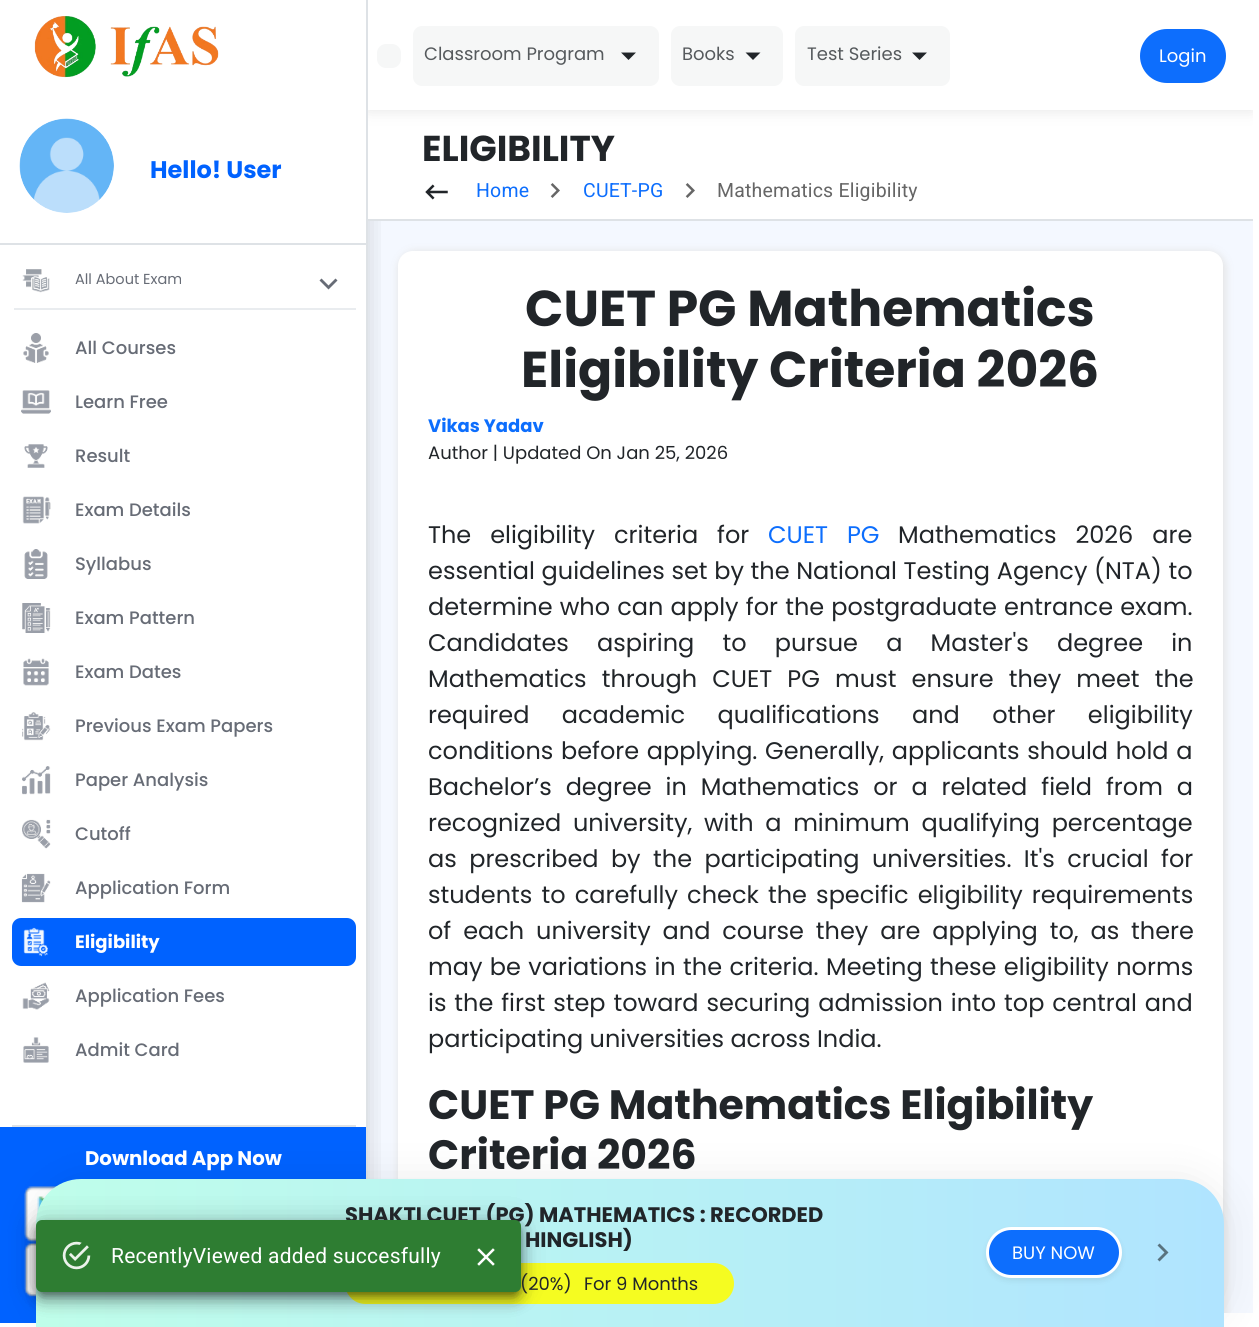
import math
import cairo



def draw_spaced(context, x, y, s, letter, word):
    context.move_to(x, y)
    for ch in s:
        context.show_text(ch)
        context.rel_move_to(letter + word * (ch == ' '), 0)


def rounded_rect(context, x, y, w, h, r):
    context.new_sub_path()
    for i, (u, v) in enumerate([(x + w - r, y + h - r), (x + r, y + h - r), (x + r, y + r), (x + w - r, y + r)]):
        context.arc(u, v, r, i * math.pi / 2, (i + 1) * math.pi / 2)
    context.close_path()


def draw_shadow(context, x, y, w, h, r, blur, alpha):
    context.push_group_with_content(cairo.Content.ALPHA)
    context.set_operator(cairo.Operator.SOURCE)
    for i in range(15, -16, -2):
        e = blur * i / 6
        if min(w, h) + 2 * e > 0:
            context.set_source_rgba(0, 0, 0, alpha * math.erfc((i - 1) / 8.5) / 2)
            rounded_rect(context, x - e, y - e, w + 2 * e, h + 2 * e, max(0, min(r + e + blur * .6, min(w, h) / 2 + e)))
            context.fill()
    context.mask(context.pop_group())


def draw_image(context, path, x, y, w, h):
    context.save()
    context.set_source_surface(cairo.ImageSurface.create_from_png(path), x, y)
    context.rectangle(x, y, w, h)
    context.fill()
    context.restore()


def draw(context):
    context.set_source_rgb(1, 1, 1)
    context.paint()
    context.set_source_rgb(244 / 255, 248 / 255, 1)
    context.rectangle(368, 221, 885, 1092)
    context.fill()
    context.save()
    context.rectangle(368, 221, 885, 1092)
    context.clip()
    context.set_source_rgb(229 / 255, 229 / 255, 229 / 255)
    draw_shadow(context, 398, 251, 828, 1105, 17, 4, 1)
    context.restore()
    context.set_source_rgb(1, 1, 1)
    context.new_path()
    context.move_to(413, 251)
    context.line_to(1208, 251)
    context.curve_to(1216.5, 251, 1223, 257.5, 1223, 266)
    context.line_to(1223, 1313)
    context.line_to(398, 1313)
    context.line_to(398, 266)
    context.curve_to(398, 257.5, 404.5, 251, 413, 251)
    context.close_path()
    context.fill()
    context.save()
    context.rectangle(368, 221, 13, 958)
    context.clip()
    context.set_source_rgb(0, 0, 0)
    draw_shadow(context, 0, 12, 368, 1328, 0, 12, 0.15)
    context.restore()
    context.set_source_rgb(222 / 255, 226 / 255, 230 / 255)
    context.rectangle(366, 0, 2, 1179)
    context.fill()
    draw_image(context, "images/1.png", 34, 16, 185, 62)
    context.rectangle(0, 243, 366, 2)
    context.fill()
    draw_image(context, "images/2.png", 19, 118, 95, 95)
    context.set_source_rgb(233 / 255, 236 / 255, 239 / 255)
    context.rectangle(14, 308, 342, 2)
    context.fill()
    draw_image(context, "images/3.png", 22, 269, 28, 24)
    context.set_source_rgb(103 / 255, 108 / 255, 118 / 255)
    context.new_path()
    context.move_to(321.5, 278.5)
    context.line_to(328.5, 285.5)
    context.line_to(335.5, 278.5)
    context.line_to(337.5, 280.5)
    context.line_to(328.5, 289.5)
    context.line_to(319.5, 280.5)
    context.close_path()
    context.fill()
    context.set_source_rgb(222 / 255, 226 / 255, 230 / 255)
    context.rectangle(12, 1125, 344, 2)
    context.fill()
    draw_image(context, "images/4.png", 23, 333, 26, 30)
    draw_image(context, "images/5.png", 21, 390, 30, 24)
    draw_image(context, "images/6.png", 24, 444, 24, 24)
    draw_image(context, "images/7.png", 22, 496, 29, 28)
    draw_image(context, "images/8.png", 24, 549, 24, 30)
    draw_image(context, "images/9.png", 22, 603, 29, 30)
    draw_image(context, "images/10.png", 23, 658, 26, 28)
    draw_image(context, "images/11.png", 22, 712, 29, 29)
    draw_image(context, "images/12.png", 22, 766, 29, 29)
    draw_image(context, "images/13.png", 22, 819, 29, 30)
    draw_image(context, "images/14.png", 21, 873, 30, 30)
    context.set_source_rgb(0, 98 / 255, 1)
    rounded_rect(context, 12, 918, 344, 48, 9)
    context.fill()
    draw_image(context, "images/15.png", 23, 927, 25, 30)
    draw_image(context, "images/16.png", 22, 982, 28, 28)
    draw_image(context, "images/17.png", 23, 1037, 26, 26)
    context.rectangle(0, 1127, 366, 196)
    context.fill()
    draw_image(context, "images/18.png", 24, 1186, 33, 56)
    draw_image(context, "images/19.png", 24, 1242, 12, 55)
    context.set_source_rgb(1, 1, 1)
    context.rectangle(368, 110, 18, 109)
    context.fill()
    context.save()
    context.rectangle(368, 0, 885, 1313)
    context.clip()
    context.set_source_rgb(229 / 255, 229 / 255, 229 / 255)
    draw_shadow(context, 368, 0, 885, 110, 0, 7.5, 1)
    context.restore()
    context.rectangle(368, 0, 885, 110)
    context.fill()
    context.set_source_rgb(246 / 255, 247 / 255, 247 / 255)
    rounded_rect(context, 377, 44, 24, 24, 9)
    context.fill()
    rounded_rect(context, 413, 26, 246, 60, 9)
    context.fill()
    context.set_source_rgb(33 / 255, 37 / 255, 41 / 255)
    context.new_path()
    context.move_to(621, 52.5)
    context.line_to(628.5, 60)
    context.line_to(636, 52.5)
    context.close_path()
    context.fill()
    context.set_source_rgb(246 / 255, 247 / 255, 247 / 255)
    rounded_rect(context, 671, 26, 112, 60, 9)
    context.fill()
    context.set_source_rgb(33 / 255, 37 / 255, 41 / 255)
    context.new_path()
    context.move_to(745.5, 52.5)
    context.line_to(753, 60)
    context.line_to(760.5, 52.5)
    context.close_path()
    context.fill()
    context.set_source_rgb(246 / 255, 247 / 255, 247 / 255)
    rounded_rect(context, 795, 26, 155, 60, 9)
    context.fill()
    context.set_source_rgb(33 / 255, 37 / 255, 41 / 255)
    context.new_path()
    context.move_to(912, 52.5)
    context.line_to(919.5, 60)
    context.line_to(927, 52.5)
    context.close_path()
    context.fill()
    context.set_source_rgb(13 / 255, 110 / 255, 253 / 255)
    rounded_rect(context, 1141, 30, 84, 52, 26)
    context.fill_preserve()
    context.stroke()
    context.set_source_rgb(222 / 255, 226 / 255, 230 / 255)
    context.rectangle(368, 219, 885, 2)
    context.fill()
    draw_image(context, "images/20.png", 425, 184, 23, 16)
    draw_image(context, "images/21.png", 550, 183, 10, 15)
    draw_image(context, "images/21.png", 685, 183, 10, 15)
    context.set_source_rgb(0, 0, 0)
    draw_shadow(context, 38, 1181, 1188, 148, 45, 20.5, 0.09)
    gradient = cairo.LinearGradient(36, 1253, 1224, 1253)
    gradient.add_color_stop_rgba(0, 191 / 255, 254 / 255, 234 / 255, 1)
    gradient.add_color_stop_rgba(1, 176 / 255, 228 / 255, 1, 1)
    context.set_source(gradient)
    context.new_path()
    context.move_to(81, 1179)
    context.line_to(1179, 1179)
    context.curve_to(1204, 1179, 1224, 1199, 1224, 1224)
    context.line_to(1224, 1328)
    context.line_to(36, 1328)
    context.line_to(36, 1224)
    context.curve_to(36, 1199, 56, 1179, 81, 1179)
    context.close_path()
    context.fill()
    context.set_source_rgb(245 / 255, 252 / 255, 33 / 255)
    rounded_rect(context, 345, 1263, 389, 41, 20.5)
    context.fill()
    context.set_source_rgb(0, 0, 0)
    draw_shadow(context, 36, 1221, 485, 72, 6, 13.5, 0.12)
    draw_shadow(context, 36, 1229, 485, 72, 6, 7.5, 0.14)
    draw_shadow(context, 38, 1226, 481, 69, 5, 4, 0.2)
    draw_shadow(context, 986, 1230, 136, 51, 25.5, 3, 0.07)
    context.set_source_rgb(13 / 255, 110 / 255, 253 / 255)
    rounded_rect(context, 987.5, 1228.5, 133, 48, 24)
    context.fill_preserve()
    context.set_source_rgb(1, 1, 1)
    context.set_line_width(3)
    context.stroke()
    context.set_source_rgb(89 / 255, 115 / 255, 127 / 255)
    context.new_path()
    context.move_to(1157.5, 1259.5)
    context.line_to(1164.5, 1252.5)
    context.line_to(1157.5, 1245.5)
    context.line_to(1159.5, 1243.5)
    context.line_to(1168.5, 1252.5)
    context.line_to(1159.5, 1261.5)
    context.close_path()
    context.fill()
    context.set_source_rgb(0, 0, 0)
    draw_shadow(context, 36, 1221, 485, 72, 6, 13.5, 0.12)
    draw_shadow(context, 36, 1229, 485, 72, 6, 7.5, 0.14)
    draw_shadow(context, 38, 1226, 481, 69, 5, 4, 0.2)
    context.select_font_face("Poppins", cairo.FontSlant.NORMAL, cairo.FontWeight.BOLD)
    context.set_font_size(24)
    context.set_source_rgb(0, 98 / 255, 1)
    context.move_to(150, 178)
    context.show_text("Hello! User")
    context.select_font_face("Poppins")
    context.set_font_size(14.5)
    context.set_source_rgb(103 / 255, 108 / 255, 118 / 255)
    context.move_to(75, 284)
    context.show_text("All About Exam")
    context.select_font_face("Poppins Medium")
    context.set_font_size(18)
    context.move_to(75, 354)
    context.show_text("All Courses")
    context.move_to(75, 408)
    context.show_text("Learn Free")
    context.move_to(75, 462)
    context.show_text("Result")
    context.move_to(75, 516)
    context.show_text("Exam Details")
    context.move_to(75, 570)
    context.show_text("Syllabus")
    context.move_to(75, 624)
    context.show_text("Exam Pattern")
    context.move_to(75, 678)
    context.show_text("Exam Dates")
    context.move_to(75, 732)
    context.show_text("Previous Exam Papers")
    context.move_to(75, 786)
    context.show_text("Paper Analysis")
    context.move_to(75, 840)
    context.show_text("Cutoff")
    context.move_to(75, 894)
    context.show_text("Application Form")
    context.select_font_face("Poppins", cairo.FontSlant.NORMAL, cairo.FontWeight.BOLD)
    context.set_source_rgb(1, 1, 1)
    context.move_to(75, 948)
    context.show_text("Eligibility")
    context.select_font_face("Poppins Medium")
    context.set_source_rgb(103 / 255, 108 / 255, 118 / 255)
    context.move_to(75, 1002)
    context.show_text("Application Fees")
    context.move_to(75, 1056)
    context.show_text("Admit Card")
    context.select_font_face("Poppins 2", cairo.FontSlant.NORMAL, cairo.FontWeight.BOLD)
    context.set_font_size(19.75)
    context.set_source_rgb(1, 1, 1)
    context.move_to(85, 1165)
    context.show_text("Download App Now")
    context.select_font_face("Poppins")
    context.set_font_size(18)
    context.set_source_rgb(86 / 255, 90 / 255, 93 / 255)
    context.move_to(424, 60)
    context.show_text("Classroom Program")
    context.move_to(682, 60)
    context.show_text("Books")
    context.move_to(807, 60)
    context.show_text("Test Series")
    context.set_source_rgb(1, 1, 1)
    context.move_to(1159, 62)
    context.show_text("Login")
    context.select_font_face("Poppins", cairo.FontSlant.NORMAL, cairo.FontWeight.BOLD)
    context.set_font_size(36)
    context.set_source_rgb(33 / 255, 37 / 255, 41 / 255)
    context.move_to(422, 161)
    context.show_text("ELIGIBILITY")
    context.select_font_face("Roboto")
    context.set_font_size(19.5)
    context.set_source_rgb(13 / 255, 110 / 255, 253 / 255)
    draw_spaced(context, 476, 197, "Home", 0.2, 0)
    draw_spaced(context, 583, 197, "CUET-PG", 0.2, 0)
    context.set_source_rgb(102 / 255, 102 / 255, 102 / 255)
    draw_spaced(context, 717, 197, "Mathematics Eligibility", 0.2, 0)
    context.select_font_face("Poppins", cairo.FontSlant.NORMAL, cairo.FontWeight.BOLD)
    context.set_font_size(50.4)
    context.set_source_rgb(33 / 255, 37 / 255, 41 / 255)
    context.move_to(525, 326)
    context.show_text("CUET PG Mathematics")
    context.move_to(521, 387)
    context.show_text("Eligibility Criteria 2026")
    context.set_font_size(18)
    context.set_source_rgb(13 / 255, 110 / 255, 253 / 255)
    context.move_to(428, 432)
    context.show_text("Vikas Yadav")
    context.select_font_face("Poppins")
    context.set_source_rgb(33 / 255, 37 / 255, 41 / 255)
    context.move_to(428, 459)
    context.show_text("Author | Updated On Jan 25, 2026")
    context.set_font_size(24)
    draw_spaced(context, 428, 543, "The eligibility criteria for", 0, 12.5)
    context.set_source_rgb(13 / 255, 110 / 255, 253 / 255)
    draw_spaced(context, 768, 543, "CUET PG", 0, 12.5)
    context.set_source_rgb(33 / 255, 37 / 255, 41 / 255)
    draw_spaced(context, 898, 543, "Mathematics 2026 are", 0, 12.5)
    draw_spaced(context, 428, 579, "essential guidelines set by the National Testing Agency (NTA) to", 0, 0.25)
    draw_spaced(context, 428, 615, "determine who can apply for the postgraduate entrance exam.", 0, 0.75)
    draw_spaced(context, 428, 651, "Candidates aspiring to pursue a Master's degree in", 0, 21.75)
    draw_spaced(context, 428, 687, "Mathematics through CUET PG must ensure they meet the", 0, 8.75)
    draw_spaced(context, 428, 723, "required academic qualifications and other eligibility", 0, 26)
    draw_spaced(context, 428, 759, "conditions before applying. Generally, applicants should hold a", 0, 1.25)
    draw_spaced(context, 428, 795, "Bachelor’s degree in Mathematics or a related field from a", 0, 7.5)
    draw_spaced(context, 428, 831, "recognized university, with a minimum qualifying percentage", 0, 5.25)
    draw_spaced(context, 428, 867, "as prescribed by the participating universities. It's crucial for", 0, 6)
    draw_spaced(context, 428, 903, "students to carefully check the specific eligibility requirements", 0, 2.75)
    draw_spaced(context, 428, 939, "of each university and course they are applying to, as there", 0, 5.5)
    draw_spaced(context, 428, 975, "may be variations in the criteria. Meeting these eligibility norms", 0, 1)
    draw_spaced(context, 428, 1011, "is the first step toward securing admission into top central and", 0, 1.5)
    context.move_to(428, 1047)
    context.show_text("participating universities across India.")
    context.select_font_face("Poppins", cairo.FontSlant.NORMAL, cairo.FontWeight.BOLD)
    context.set_font_size(41)
    context.move_to(428, 1119)
    context.show_text("CUET PG Mathematics Eligibility")
    context.move_to(428, 1169)
    context.show_text("Criteria 2026")
    context.save()
    context.rectangle(345, 1203, 540, 48)
    context.clip()
    context.set_font_size(21)
    context.move_to(345, 1222)
    context.show_text("SHAKTI CUET (PG) MATHEMATICS : RECORDED")
    context.restore()
    context.set_source_rgb(46 / 255, 125 / 255, 50 / 255)
    rounded_rect(context, 36, 1220, 485, 72, 6)
    context.fill()
    draw_image(context, "images/23.png", 477, 1248, 18, 18)
    draw_image(context, "images/22.png", 62, 1241, 29, 29)
    context.select_font_face("Roboto")
    context.set_font_size(21)
    context.set_source_rgb(1, 1, 1)
    draw_spaced(context, 111, 1263, "RecentlyViewed added succesfully", 0.25, 0)
    context.save()
    context.rectangle(345, 1203, 540, 48)
    context.clip()
    context.select_font_face("Poppins", cairo.FontSlant.NORMAL, cairo.FontWeight.BOLD)
    context.set_source_rgb(33 / 255, 37 / 255, 41 / 255)
    context.move_to(525, 1247)
    context.show_text("HINGLISH)")
    context.restore()
    context.select_font_face("Poppins")
    context.set_font_size(18)
    context.set_source_rgb(33 / 255, 37 / 255, 41 / 255)
    context.move_to(520, 1290)
    context.show_text("(20%)")
    context.move_to(584, 1290)
    context.show_text("For 9 Months")
    context.set_source_rgb(1, 1, 1)
    context.move_to(1012, 1259)
    context.show_text("BUY NOW")


surface = cairo.ImageSurface(cairo.Format.RGB24, 1259, 1327)
context = cairo.Context(surface)
options = cairo.FontOptions()
options.set_hint_metrics(cairo.HintMetrics.OFF)
options.set_hint_style(cairo.HintStyle.NONE)
context.set_font_options(options)
context.set_miter_limit(4)
draw(context)
surface.write_to_png("out.png")
